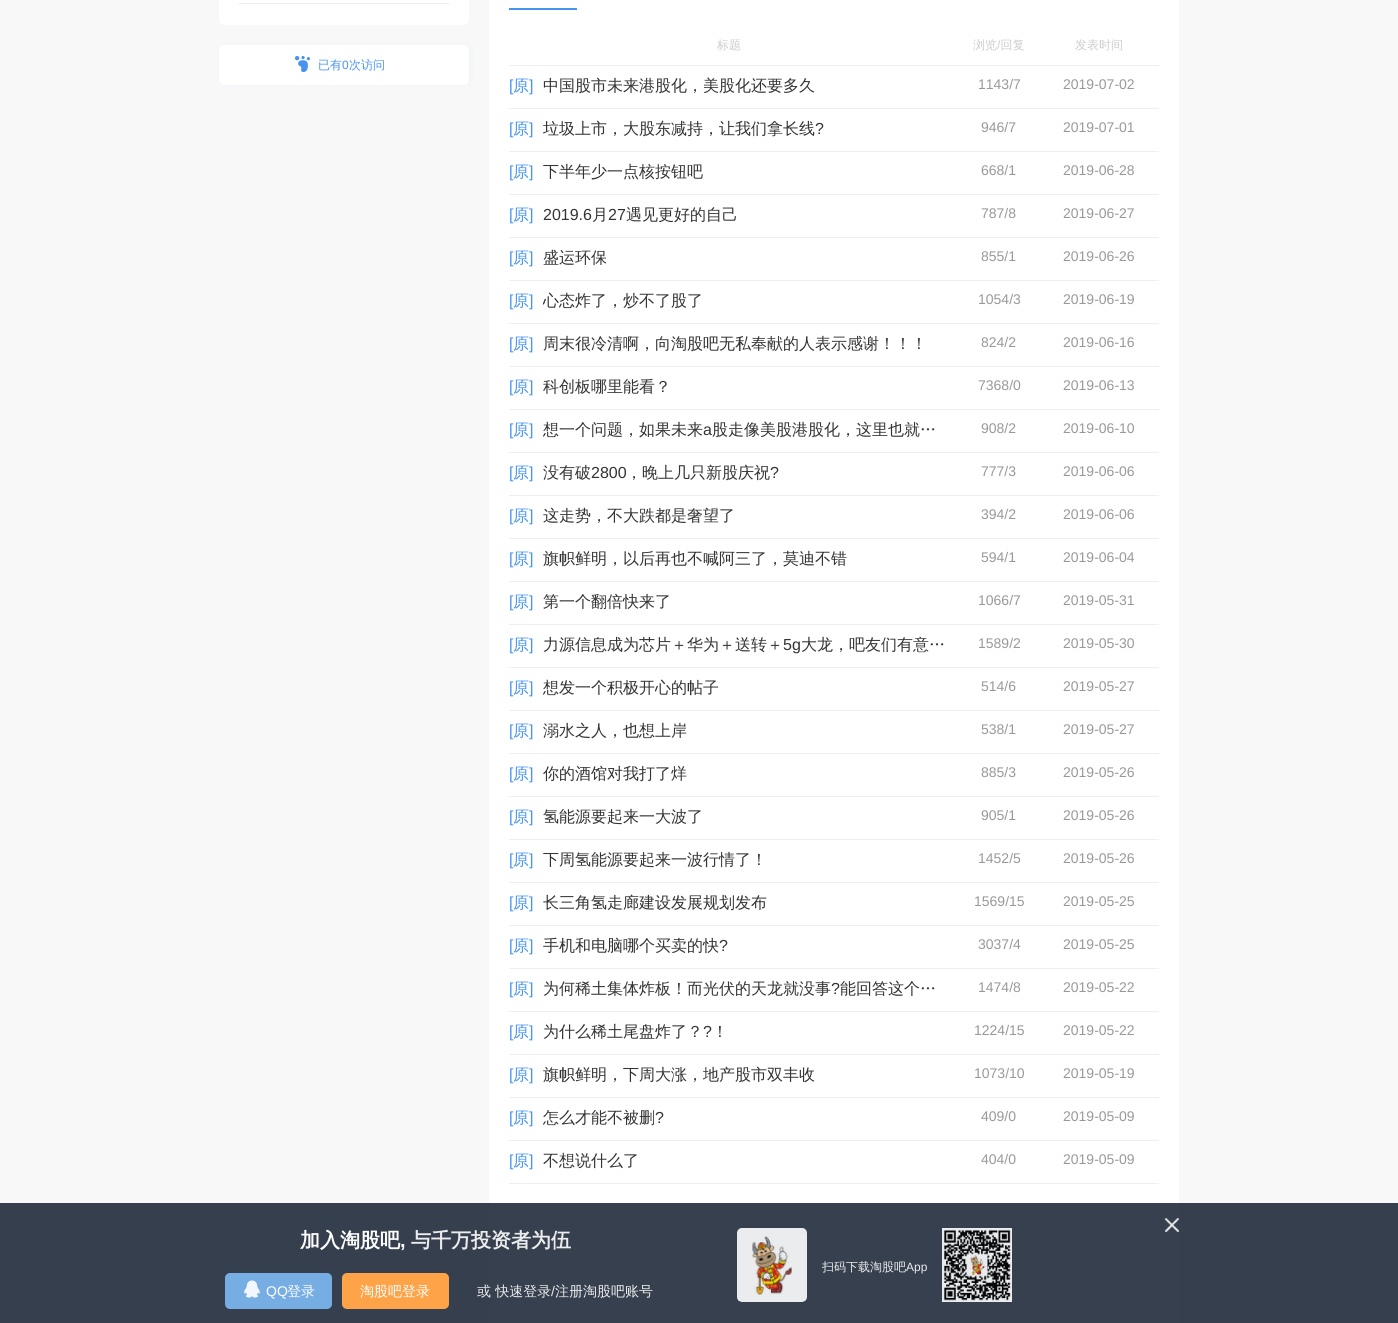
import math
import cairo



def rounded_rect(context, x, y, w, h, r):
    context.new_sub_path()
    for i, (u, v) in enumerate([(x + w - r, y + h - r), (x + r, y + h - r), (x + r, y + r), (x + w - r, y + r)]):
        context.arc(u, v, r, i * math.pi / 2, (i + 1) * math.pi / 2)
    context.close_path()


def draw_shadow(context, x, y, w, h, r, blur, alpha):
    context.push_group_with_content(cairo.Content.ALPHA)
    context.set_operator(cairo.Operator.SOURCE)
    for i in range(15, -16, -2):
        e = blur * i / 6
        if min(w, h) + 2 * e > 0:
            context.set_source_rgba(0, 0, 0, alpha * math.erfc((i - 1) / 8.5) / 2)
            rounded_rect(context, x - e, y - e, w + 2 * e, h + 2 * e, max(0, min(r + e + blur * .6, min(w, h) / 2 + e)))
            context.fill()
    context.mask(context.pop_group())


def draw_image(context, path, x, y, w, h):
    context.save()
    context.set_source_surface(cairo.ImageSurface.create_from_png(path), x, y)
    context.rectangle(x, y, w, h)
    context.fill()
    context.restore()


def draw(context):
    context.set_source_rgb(248 / 255, 248 / 255, 248 / 255)
    context.paint()
    context.set_source_rgb(1, 1, 1)
    rounded_rect(context, 219, -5, 250, 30, 5)
    context.fill()
    context.set_source_rgb(239 / 255, 239 / 255, 239 / 255)
    context.rectangle(239, 3, 210, 1)
    context.fill()
    context.set_source_rgb(202 / 255, 229 / 255, 1)
    draw_shadow(context, 221, 45, 250, 40, 5, 3, 0.24)
    context.set_source_rgb(1, 1, 1)
    rounded_rect(context, 219, 45, 250, 40, 5)
    context.fill()
    draw_image(context, "images/1.png", 295, 56, 15, 16)
    context.rectangle(489, 0, 690, 1323)
    context.fill()
    context.set_source_rgb(71 / 255, 147 / 255, 241 / 255)
    context.rectangle(509, 8, 68, 2)
    context.fill()
    context.set_source_rgb(239 / 255, 239 / 255, 239 / 255)
    context.rectangle(509, 65, 650, 1)
    context.fill()
    context.rectangle(509, 108, 650, 1)
    context.fill()
    context.rectangle(509, 151, 650, 1)
    context.fill()
    context.rectangle(509, 194, 650, 1)
    context.fill()
    context.rectangle(509, 237, 650, 1)
    context.fill()
    context.rectangle(509, 280, 650, 1)
    context.fill()
    context.rectangle(509, 323, 650, 1)
    context.fill()
    context.rectangle(509, 366, 650, 1)
    context.fill()
    context.rectangle(509, 409, 650, 1)
    context.fill()
    context.rectangle(509, 452, 650, 1)
    context.fill()
    context.rectangle(509, 495, 650, 1)
    context.fill()
    context.rectangle(509, 538, 650, 1)
    context.fill()
    context.rectangle(509, 581, 650, 1)
    context.fill()
    context.rectangle(509, 624, 650, 1)
    context.fill()
    context.rectangle(509, 667, 650, 1)
    context.fill()
    context.rectangle(509, 710, 650, 1)
    context.fill()
    context.rectangle(509, 753, 650, 1)
    context.fill()
    context.rectangle(509, 796, 650, 1)
    context.fill()
    context.rectangle(509, 839, 650, 1)
    context.fill()
    context.rectangle(509, 882, 650, 1)
    context.fill()
    context.rectangle(509, 925, 650, 1)
    context.fill()
    context.rectangle(509, 968, 650, 1)
    context.fill()
    context.rectangle(509, 1011, 650, 1)
    context.fill()
    context.rectangle(509, 1054, 650, 1)
    context.fill()
    context.rectangle(509, 1097, 650, 1)
    context.fill()
    context.rectangle(509, 1140, 650, 1)
    context.fill()
    context.rectangle(509, 1183, 650, 1)
    context.fill()
    context.rectangle(509, 1226, 650, 1)
    context.fill()
    context.rectangle(509, 1269, 650, 1)
    context.fill()
    context.rectangle(509, 1312, 650, 1)
    context.fill()
    context.set_source_rgba(34 / 255, 44 / 255, 60 / 255, 0.9)
    context.rectangle(0, 1203, 1398, 120)
    context.fill()
    draw_image(context, "images/2.png", 1165, 1218, 14, 14)
    context.set_source_rgb(118 / 255, 173 / 255, 227 / 255)
    rounded_rect(context, 225, 1273, 107, 36, 5)
    context.fill()
    draw_image(context, "images/3.png", 244, 1280, 16, 18)
    context.set_source_rgb(254 / 255, 163 / 255, 71 / 255)
    rounded_rect(context, 342, 1273, 107, 36, 5)
    context.fill()
    draw_image(context, "images/4.png", 737, 1228, 70, 74)
    draw_image(context, "images/5.png", 942, 1228, 70, 74)
    context.select_font_face("WenQuanYi Zen Hei Medium")
    context.set_font_size(12)
    context.set_source_rgb(71 / 255, 147 / 255, 241 / 255)
    context.move_to(318, 69)
    context.show_text("已有")
    context.select_font_face("Liberation Sans")
    context.move_to(342, 69)
    context.show_text("0")
    context.select_font_face("WenQuanYi Zen Hei Medium")
    context.move_to(349, 69)
    context.show_text("次访问")
    context.set_source_rgb(204 / 255, 204 / 255, 204 / 255)
    context.move_to(717, 49)
    context.show_text("标题")
    context.move_to(973, 49)
    context.show_text("浏览 回复")
    context.select_font_face("Liberation Sans")
    context.move_to(997, 49)
    context.show_text("/")
    context.select_font_face("WenQuanYi Zen Hei Medium")
    context.move_to(1075, 49)
    context.show_text("发表时间")
    context.select_font_face("Liberation Sans")
    context.set_font_size(16)
    context.set_source_rgb(71 / 255, 147 / 255, 241 / 255)
    context.move_to(509, 91)
    context.show_text("[")
    context.select_font_face("WenQuanYi Zen Hei Medium")
    context.move_to(513, 91)
    context.show_text("原")
    context.select_font_face("Liberation Sans")
    context.move_to(529, 91)
    context.show_text("]")
    context.select_font_face("WenQuanYi Zen Hei Medium")
    context.set_source_rgb(51 / 255, 51 / 255, 51 / 255)
    context.move_to(543, 91)
    context.show_text("中国股市未来港股化，美股化还要多久")
    context.select_font_face("Liberation Sans")
    context.set_font_size(14)
    context.set_source_rgb(153 / 255, 153 / 255, 153 / 255)
    context.move_to(978, 89)
    context.show_text("1143/7")
    context.move_to(1063, 89)
    context.show_text("2019-07-02")
    context.set_font_size(16)
    context.set_source_rgb(71 / 255, 147 / 255, 241 / 255)
    context.move_to(509, 134)
    context.show_text("[")
    context.select_font_face("WenQuanYi Zen Hei Medium")
    context.move_to(513, 134)
    context.show_text("原")
    context.select_font_face("Liberation Sans")
    context.move_to(529, 134)
    context.show_text("]")
    context.select_font_face("WenQuanYi Zen Hei Medium")
    context.set_source_rgb(51 / 255, 51 / 255, 51 / 255)
    context.move_to(543, 134)
    context.show_text("垃圾上市，大股东减持，让我们拿长线")
    context.select_font_face("Liberation Sans")
    context.move_to(815, 134)
    context.show_text("?")
    context.set_font_size(14)
    context.set_source_rgb(153 / 255, 153 / 255, 153 / 255)
    context.move_to(981, 132)
    context.show_text("946/7")
    context.move_to(1063, 132)
    context.show_text("2019-07-01")
    context.set_font_size(16)
    context.set_source_rgb(71 / 255, 147 / 255, 241 / 255)
    context.move_to(509, 177)
    context.show_text("[")
    context.select_font_face("WenQuanYi Zen Hei Medium")
    context.move_to(513, 177)
    context.show_text("原")
    context.select_font_face("Liberation Sans")
    context.move_to(529, 177)
    context.show_text("]")
    context.select_font_face("WenQuanYi Zen Hei Medium")
    context.set_source_rgb(51 / 255, 51 / 255, 51 / 255)
    context.move_to(543, 177)
    context.show_text("下半年少一点核按钮吧")
    context.select_font_face("Liberation Sans")
    context.set_font_size(14)
    context.set_source_rgb(153 / 255, 153 / 255, 153 / 255)
    context.move_to(981, 175)
    context.show_text("668/1")
    context.move_to(1063, 175)
    context.show_text("2019-06-28")
    context.set_font_size(16)
    context.set_source_rgb(71 / 255, 147 / 255, 241 / 255)
    context.move_to(509, 220)
    context.show_text("[")
    context.select_font_face("WenQuanYi Zen Hei Medium")
    context.move_to(513, 220)
    context.show_text("原")
    context.select_font_face("Liberation Sans")
    context.move_to(529, 220)
    context.show_text("]")
    context.set_source_rgb(51 / 255, 51 / 255, 51 / 255)
    context.move_to(543, 220)
    context.show_text("2019.6")
    context.select_font_face("WenQuanYi Zen Hei Medium")
    context.move_to(592, 220)
    context.show_text("月")
    context.select_font_face("Liberation Sans")
    context.move_to(608, 220)
    context.show_text("27")
    context.select_font_face("WenQuanYi Zen Hei Medium")
    context.move_to(626, 220)
    context.show_text("遇见更好的自己")
    context.select_font_face("Liberation Sans")
    context.set_font_size(14)
    context.set_source_rgb(153 / 255, 153 / 255, 153 / 255)
    context.move_to(981, 218)
    context.show_text("787/8")
    context.move_to(1063, 218)
    context.show_text("2019-06-27")
    context.set_font_size(16)
    context.set_source_rgb(71 / 255, 147 / 255, 241 / 255)
    context.move_to(509, 263)
    context.show_text("[")
    context.select_font_face("WenQuanYi Zen Hei Medium")
    context.move_to(513, 263)
    context.show_text("原")
    context.select_font_face("Liberation Sans")
    context.move_to(529, 263)
    context.show_text("]")
    context.select_font_face("WenQuanYi Zen Hei Medium")
    context.set_source_rgb(51 / 255, 51 / 255, 51 / 255)
    context.move_to(543, 263)
    context.show_text("盛运环保")
    context.select_font_face("Liberation Sans")
    context.set_font_size(14)
    context.set_source_rgb(153 / 255, 153 / 255, 153 / 255)
    context.move_to(981, 261)
    context.show_text("855/1")
    context.move_to(1063, 261)
    context.show_text("2019-06-26")
    context.set_font_size(16)
    context.set_source_rgb(71 / 255, 147 / 255, 241 / 255)
    context.move_to(509, 306)
    context.show_text("[")
    context.select_font_face("WenQuanYi Zen Hei Medium")
    context.move_to(513, 306)
    context.show_text("原")
    context.select_font_face("Liberation Sans")
    context.move_to(529, 306)
    context.show_text("]")
    context.select_font_face("WenQuanYi Zen Hei Medium")
    context.set_source_rgb(51 / 255, 51 / 255, 51 / 255)
    context.move_to(543, 306)
    context.show_text("心态炸了，炒不了股了")
    context.select_font_face("Liberation Sans")
    context.set_font_size(14)
    context.set_source_rgb(153 / 255, 153 / 255, 153 / 255)
    context.move_to(978, 304)
    context.show_text("1054/3")
    context.move_to(1063, 304)
    context.show_text("2019-06-19")
    context.set_font_size(16)
    context.set_source_rgb(71 / 255, 147 / 255, 241 / 255)
    context.move_to(509, 349)
    context.show_text("[")
    context.select_font_face("WenQuanYi Zen Hei Medium")
    context.move_to(513, 349)
    context.show_text("原")
    context.select_font_face("Liberation Sans")
    context.move_to(529, 349)
    context.show_text("]")
    context.select_font_face("WenQuanYi Zen Hei Medium")
    context.set_source_rgb(51 / 255, 51 / 255, 51 / 255)
    context.move_to(543, 349)
    context.show_text("周末很冷清啊，向淘股吧无私奉献的人表示感谢！！！")
    context.select_font_face("Liberation Sans")
    context.set_font_size(14)
    context.set_source_rgb(153 / 255, 153 / 255, 153 / 255)
    context.move_to(981, 347)
    context.show_text("824/2")
    context.move_to(1063, 347)
    context.show_text("2019-06-16")
    context.set_font_size(16)
    context.set_source_rgb(71 / 255, 147 / 255, 241 / 255)
    context.move_to(509, 392)
    context.show_text("[")
    context.select_font_face("WenQuanYi Zen Hei Medium")
    context.move_to(513, 392)
    context.show_text("原")
    context.select_font_face("Liberation Sans")
    context.move_to(529, 392)
    context.show_text("]")
    context.select_font_face("WenQuanYi Zen Hei Medium")
    context.set_source_rgb(51 / 255, 51 / 255, 51 / 255)
    context.move_to(543, 392)
    context.show_text("科创板哪里能看？")
    context.select_font_face("Liberation Sans")
    context.set_font_size(14)
    context.set_source_rgb(153 / 255, 153 / 255, 153 / 255)
    context.move_to(978, 390)
    context.show_text("7368/0")
    context.move_to(1063, 390)
    context.show_text("2019-06-13")
    context.set_font_size(16)
    context.set_source_rgb(71 / 255, 147 / 255, 241 / 255)
    context.move_to(509, 435)
    context.show_text("[")
    context.select_font_face("WenQuanYi Zen Hei Medium")
    context.move_to(513, 435)
    context.show_text("原")
    context.select_font_face("Liberation Sans")
    context.move_to(529, 435)
    context.show_text("]")
    context.select_font_face("WenQuanYi Zen Hei Medium")
    context.set_source_rgb(51 / 255, 51 / 255, 51 / 255)
    context.move_to(543, 435)
    context.show_text("想一个问题，如果未来")
    context.select_font_face("Liberation Sans")
    context.move_to(703, 435)
    context.show_text("a")
    context.select_font_face("WenQuanYi Zen Hei Medium")
    context.move_to(712, 435)
    context.show_text("股走像美股港股化，这里也就…")
    context.select_font_face("Liberation Sans")
    context.set_font_size(14)
    context.set_source_rgb(153 / 255, 153 / 255, 153 / 255)
    context.move_to(981, 433)
    context.show_text("908/2")
    context.move_to(1063, 433)
    context.show_text("2019-06-10")
    context.set_font_size(16)
    context.set_source_rgb(71 / 255, 147 / 255, 241 / 255)
    context.move_to(509, 478)
    context.show_text("[")
    context.select_font_face("WenQuanYi Zen Hei Medium")
    context.move_to(513, 478)
    context.show_text("原")
    context.select_font_face("Liberation Sans")
    context.move_to(529, 478)
    context.show_text("]")
    context.select_font_face("WenQuanYi Zen Hei Medium")
    context.set_source_rgb(51 / 255, 51 / 255, 51 / 255)
    context.move_to(543, 478)
    context.show_text("没有破")
    context.select_font_face("Liberation Sans")
    context.move_to(591, 478)
    context.show_text("2800")
    context.select_font_face("WenQuanYi Zen Hei Medium")
    context.move_to(626, 478)
    context.show_text("，晚上几只新股庆祝")
    context.select_font_face("Liberation Sans")
    context.move_to(770, 478)
    context.show_text("?")
    context.set_font_size(14)
    context.set_source_rgb(153 / 255, 153 / 255, 153 / 255)
    context.move_to(981, 476)
    context.show_text("777/3")
    context.move_to(1063, 476)
    context.show_text("2019-06-06")
    context.set_font_size(16)
    context.set_source_rgb(71 / 255, 147 / 255, 241 / 255)
    context.move_to(509, 521)
    context.show_text("[")
    context.select_font_face("WenQuanYi Zen Hei Medium")
    context.move_to(513, 521)
    context.show_text("原")
    context.select_font_face("Liberation Sans")
    context.move_to(529, 521)
    context.show_text("]")
    context.select_font_face("WenQuanYi Zen Hei Medium")
    context.set_source_rgb(51 / 255, 51 / 255, 51 / 255)
    context.move_to(543, 521)
    context.show_text("这走势，不大跌都是奢望了")
    context.select_font_face("Liberation Sans")
    context.set_font_size(14)
    context.set_source_rgb(153 / 255, 153 / 255, 153 / 255)
    context.move_to(981, 519)
    context.show_text("394/2")
    context.move_to(1063, 519)
    context.show_text("2019-06-06")
    context.set_font_size(16)
    context.set_source_rgb(71 / 255, 147 / 255, 241 / 255)
    context.move_to(509, 564)
    context.show_text("[")
    context.select_font_face("WenQuanYi Zen Hei Medium")
    context.move_to(513, 564)
    context.show_text("原")
    context.select_font_face("Liberation Sans")
    context.move_to(529, 564)
    context.show_text("]")
    context.select_font_face("WenQuanYi Zen Hei Medium")
    context.set_source_rgb(51 / 255, 51 / 255, 51 / 255)
    context.move_to(543, 564)
    context.show_text("旗帜鲜明，以后再也不喊阿三了，莫迪不错")
    context.select_font_face("Liberation Sans")
    context.set_font_size(14)
    context.set_source_rgb(153 / 255, 153 / 255, 153 / 255)
    context.move_to(981, 562)
    context.show_text("594/1")
    context.move_to(1063, 562)
    context.show_text("2019-06-04")
    context.set_font_size(16)
    context.set_source_rgb(71 / 255, 147 / 255, 241 / 255)
    context.move_to(509, 607)
    context.show_text("[")
    context.select_font_face("WenQuanYi Zen Hei Medium")
    context.move_to(513, 607)
    context.show_text("原")
    context.select_font_face("Liberation Sans")
    context.move_to(529, 607)
    context.show_text("]")
    context.select_font_face("WenQuanYi Zen Hei Medium")
    context.set_source_rgb(51 / 255, 51 / 255, 51 / 255)
    context.move_to(543, 607)
    context.show_text("第一个翻倍快来了")
    context.select_font_face("Liberation Sans")
    context.set_font_size(14)
    context.set_source_rgb(153 / 255, 153 / 255, 153 / 255)
    context.move_to(978, 605)
    context.show_text("1066/7")
    context.move_to(1063, 605)
    context.show_text("2019-05-31")
    context.set_font_size(16)
    context.set_source_rgb(71 / 255, 147 / 255, 241 / 255)
    context.move_to(509, 650)
    context.show_text("[")
    context.select_font_face("WenQuanYi Zen Hei Medium")
    context.move_to(513, 650)
    context.show_text("原")
    context.select_font_face("Liberation Sans")
    context.move_to(529, 650)
    context.show_text("]")
    context.select_font_face("WenQuanYi Zen Hei Medium")
    context.set_source_rgb(51 / 255, 51 / 255, 51 / 255)
    context.move_to(543, 650)
    context.show_text("力源信息成为芯片＋华为＋送转＋")
    context.select_font_face("Liberation Sans")
    context.move_to(783, 650)
    context.show_text("5g")
    context.select_font_face("WenQuanYi Zen Hei Medium")
    context.move_to(801, 650)
    context.show_text("大龙，吧友们有意…")
    context.select_font_face("Liberation Sans")
    context.set_font_size(14)
    context.set_source_rgb(153 / 255, 153 / 255, 153 / 255)
    context.move_to(978, 648)
    context.show_text("1589/2")
    context.move_to(1063, 648)
    context.show_text("2019-05-30")
    context.set_font_size(16)
    context.set_source_rgb(71 / 255, 147 / 255, 241 / 255)
    context.move_to(509, 693)
    context.show_text("[")
    context.select_font_face("WenQuanYi Zen Hei Medium")
    context.move_to(513, 693)
    context.show_text("原")
    context.select_font_face("Liberation Sans")
    context.move_to(529, 693)
    context.show_text("]")
    context.select_font_face("WenQuanYi Zen Hei Medium")
    context.set_source_rgb(51 / 255, 51 / 255, 51 / 255)
    context.move_to(543, 693)
    context.show_text("想发一个积极开心的帖子")
    context.select_font_face("Liberation Sans")
    context.set_font_size(14)
    context.set_source_rgb(153 / 255, 153 / 255, 153 / 255)
    context.move_to(981, 691)
    context.show_text("514/6")
    context.move_to(1063, 691)
    context.show_text("2019-05-27")
    context.set_font_size(16)
    context.set_source_rgb(71 / 255, 147 / 255, 241 / 255)
    context.move_to(509, 736)
    context.show_text("[")
    context.select_font_face("WenQuanYi Zen Hei Medium")
    context.move_to(513, 736)
    context.show_text("原")
    context.select_font_face("Liberation Sans")
    context.move_to(529, 736)
    context.show_text("]")
    context.select_font_face("WenQuanYi Zen Hei Medium")
    context.set_source_rgb(51 / 255, 51 / 255, 51 / 255)
    context.move_to(543, 736)
    context.show_text("溺水之人，也想上岸")
    context.select_font_face("Liberation Sans")
    context.set_font_size(14)
    context.set_source_rgb(153 / 255, 153 / 255, 153 / 255)
    context.move_to(981, 734)
    context.show_text("538/1")
    context.move_to(1063, 734)
    context.show_text("2019-05-27")
    context.set_font_size(16)
    context.set_source_rgb(71 / 255, 147 / 255, 241 / 255)
    context.move_to(509, 779)
    context.show_text("[")
    context.select_font_face("WenQuanYi Zen Hei Medium")
    context.move_to(513, 779)
    context.show_text("原")
    context.select_font_face("Liberation Sans")
    context.move_to(529, 779)
    context.show_text("]")
    context.select_font_face("WenQuanYi Zen Hei Medium")
    context.set_source_rgb(51 / 255, 51 / 255, 51 / 255)
    context.move_to(543, 779)
    context.show_text("你的酒馆对我打了烊")
    context.select_font_face("Liberation Sans")
    context.set_font_size(14)
    context.set_source_rgb(153 / 255, 153 / 255, 153 / 255)
    context.move_to(981, 777)
    context.show_text("885/3")
    context.move_to(1063, 777)
    context.show_text("2019-05-26")
    context.set_font_size(16)
    context.set_source_rgb(71 / 255, 147 / 255, 241 / 255)
    context.move_to(509, 822)
    context.show_text("[")
    context.select_font_face("WenQuanYi Zen Hei Medium")
    context.move_to(513, 822)
    context.show_text("原")
    context.select_font_face("Liberation Sans")
    context.move_to(529, 822)
    context.show_text("]")
    context.select_font_face("WenQuanYi Zen Hei Medium")
    context.set_source_rgb(51 / 255, 51 / 255, 51 / 255)
    context.move_to(543, 822)
    context.show_text("氢能源要起来一大波了")
    context.select_font_face("Liberation Sans")
    context.set_font_size(14)
    context.set_source_rgb(153 / 255, 153 / 255, 153 / 255)
    context.move_to(981, 820)
    context.show_text("905/1")
    context.move_to(1063, 820)
    context.show_text("2019-05-26")
    context.set_font_size(16)
    context.set_source_rgb(71 / 255, 147 / 255, 241 / 255)
    context.move_to(509, 865)
    context.show_text("[")
    context.select_font_face("WenQuanYi Zen Hei Medium")
    context.move_to(513, 865)
    context.show_text("原")
    context.select_font_face("Liberation Sans")
    context.move_to(529, 865)
    context.show_text("]")
    context.select_font_face("WenQuanYi Zen Hei Medium")
    context.set_source_rgb(51 / 255, 51 / 255, 51 / 255)
    context.move_to(543, 865)
    context.show_text("下周氢能源要起来一波行情了！")
    context.select_font_face("Liberation Sans")
    context.set_font_size(14)
    context.set_source_rgb(153 / 255, 153 / 255, 153 / 255)
    context.move_to(978, 863)
    context.show_text("1452/5")
    context.move_to(1063, 863)
    context.show_text("2019-05-26")
    context.set_font_size(16)
    context.set_source_rgb(71 / 255, 147 / 255, 241 / 255)
    context.move_to(509, 908)
    context.show_text("[")
    context.select_font_face("WenQuanYi Zen Hei Medium")
    context.move_to(513, 908)
    context.show_text("原")
    context.select_font_face("Liberation Sans")
    context.move_to(529, 908)
    context.show_text("]")
    context.select_font_face("WenQuanYi Zen Hei Medium")
    context.set_source_rgb(51 / 255, 51 / 255, 51 / 255)
    context.move_to(543, 908)
    context.show_text("长三角氢走廊建设发展规划发布")
    context.select_font_face("Liberation Sans")
    context.set_font_size(14)
    context.set_source_rgb(153 / 255, 153 / 255, 153 / 255)
    context.move_to(974, 906)
    context.show_text("1569/15")
    context.move_to(1063, 906)
    context.show_text("2019-05-25")
    context.set_font_size(16)
    context.set_source_rgb(71 / 255, 147 / 255, 241 / 255)
    context.move_to(509, 951)
    context.show_text("[")
    context.select_font_face("WenQuanYi Zen Hei Medium")
    context.move_to(513, 951)
    context.show_text("原")
    context.select_font_face("Liberation Sans")
    context.move_to(529, 951)
    context.show_text("]")
    context.select_font_face("WenQuanYi Zen Hei Medium")
    context.set_source_rgb(51 / 255, 51 / 255, 51 / 255)
    context.move_to(543, 951)
    context.show_text("手机和电脑哪个买卖的快")
    context.select_font_face("Liberation Sans")
    context.move_to(719, 951)
    context.show_text("?")
    context.set_font_size(14)
    context.set_source_rgb(153 / 255, 153 / 255, 153 / 255)
    context.move_to(978, 949)
    context.show_text("3037/4")
    context.move_to(1063, 949)
    context.show_text("2019-05-25")
    context.set_font_size(16)
    context.set_source_rgb(71 / 255, 147 / 255, 241 / 255)
    context.move_to(509, 994)
    context.show_text("[")
    context.select_font_face("WenQuanYi Zen Hei Medium")
    context.move_to(513, 994)
    context.show_text("原")
    context.select_font_face("Liberation Sans")
    context.move_to(529, 994)
    context.show_text("]")
    context.select_font_face("WenQuanYi Zen Hei Medium")
    context.set_source_rgb(51 / 255, 51 / 255, 51 / 255)
    context.move_to(543, 994)
    context.show_text("为何稀土集体炸板！而光伏的天龙就没事")
    context.select_font_face("Liberation Sans")
    context.move_to(831, 994)
    context.show_text("?")
    context.select_font_face("WenQuanYi Zen Hei Medium")
    context.move_to(840, 994)
    context.show_text("能回答这个…")
    context.select_font_face("Liberation Sans")
    context.set_font_size(14)
    context.set_source_rgb(153 / 255, 153 / 255, 153 / 255)
    context.move_to(978, 992)
    context.show_text("1474/8")
    context.move_to(1063, 992)
    context.show_text("2019-05-22")
    context.set_font_size(16)
    context.set_source_rgb(71 / 255, 147 / 255, 241 / 255)
    context.move_to(509, 1037)
    context.show_text("[")
    context.select_font_face("WenQuanYi Zen Hei Medium")
    context.move_to(513, 1037)
    context.show_text("原")
    context.select_font_face("Liberation Sans")
    context.move_to(529, 1037)
    context.show_text("]")
    context.select_font_face("WenQuanYi Zen Hei Medium")
    context.set_source_rgb(51 / 255, 51 / 255, 51 / 255)
    context.move_to(543, 1037)
    context.show_text("为什么稀土尾盘炸了？")
    context.select_font_face("Liberation Sans")
    context.move_to(703, 1037)
    context.show_text("?")
    context.select_font_face("WenQuanYi Zen Hei Medium")
    context.move_to(712, 1037)
    context.show_text("！")
    context.select_font_face("Liberation Sans")
    context.set_font_size(14)
    context.set_source_rgb(153 / 255, 153 / 255, 153 / 255)
    context.move_to(974, 1035)
    context.show_text("1224/15")
    context.move_to(1063, 1035)
    context.show_text("2019-05-22")
    context.set_font_size(16)
    context.set_source_rgb(71 / 255, 147 / 255, 241 / 255)
    context.move_to(509, 1080)
    context.show_text("[")
    context.select_font_face("WenQuanYi Zen Hei Medium")
    context.move_to(513, 1080)
    context.show_text("原")
    context.select_font_face("Liberation Sans")
    context.move_to(529, 1080)
    context.show_text("]")
    context.select_font_face("WenQuanYi Zen Hei Medium")
    context.set_source_rgb(51 / 255, 51 / 255, 51 / 255)
    context.move_to(543, 1080)
    context.show_text("旗帜鲜明，下周大涨，地产股市双丰收")
    context.select_font_face("Liberation Sans")
    context.set_font_size(14)
    context.set_source_rgb(153 / 255, 153 / 255, 153 / 255)
    context.move_to(974, 1078)
    context.show_text("1073/10")
    context.move_to(1063, 1078)
    context.show_text("2019-05-19")
    context.set_font_size(16)
    context.set_source_rgb(71 / 255, 147 / 255, 241 / 255)
    context.move_to(509, 1123)
    context.show_text("[")
    context.select_font_face("WenQuanYi Zen Hei Medium")
    context.move_to(513, 1123)
    context.show_text("原")
    context.select_font_face("Liberation Sans")
    context.move_to(529, 1123)
    context.show_text("]")
    context.select_font_face("WenQuanYi Zen Hei Medium")
    context.set_source_rgb(51 / 255, 51 / 255, 51 / 255)
    context.move_to(543, 1123)
    context.show_text("怎么才能不被删")
    context.select_font_face("Liberation Sans")
    context.move_to(655, 1123)
    context.show_text("?")
    context.set_font_size(14)
    context.set_source_rgb(153 / 255, 153 / 255, 153 / 255)
    context.move_to(981, 1121)
    context.show_text("409/0")
    context.move_to(1063, 1121)
    context.show_text("2019-05-09")
    context.set_font_size(16)
    context.set_source_rgb(71 / 255, 147 / 255, 241 / 255)
    context.move_to(509, 1166)
    context.show_text("[")
    context.select_font_face("WenQuanYi Zen Hei Medium")
    context.move_to(513, 1166)
    context.show_text("原")
    context.select_font_face("Liberation Sans")
    context.move_to(529, 1166)
    context.show_text("]")
    context.select_font_face("WenQuanYi Zen Hei Medium")
    context.set_source_rgb(51 / 255, 51 / 255, 51 / 255)
    context.move_to(543, 1166)
    context.show_text("不想说什么了")
    context.select_font_face("Liberation Sans")
    context.set_font_size(14)
    context.set_source_rgb(153 / 255, 153 / 255, 153 / 255)
    context.move_to(981, 1164)
    context.show_text("404/0")
    context.move_to(1063, 1164)
    context.show_text("2019-05-09")
    context.select_font_face("WenQuanYi Zen Hei", cairo.FontSlant.NORMAL, cairo.FontWeight.BOLD)
    context.set_font_size(20)
    context.set_source_rgb(254 / 255, 254 / 255, 254 / 255)
    context.move_to(300, 1247)
    context.show_text("加入淘股吧")
    context.select_font_face("Liberation Sans", cairo.FontSlant.NORMAL, cairo.FontWeight.BOLD)
    context.move_to(400, 1247)
    context.show_text(",")
    context.select_font_face("WenQuanYi Zen Hei", cairo.FontSlant.NORMAL, cairo.FontWeight.BOLD)
    context.set_source_rgb(235 / 255, 236 / 255, 237 / 255)
    context.move_to(411, 1247)
    context.show_text("与千万投资者为伍")
    context.select_font_face("Liberation Sans")
    context.set_font_size(14)
    context.set_source_rgb(254 / 255, 254 / 255, 254 / 255)
    context.move_to(266, 1296)
    context.show_text("QQ")
    context.select_font_face("WenQuanYi Zen Hei Medium")
    context.move_to(287, 1296)
    context.show_text("登录")
    context.move_to(360, 1296)
    context.show_text("淘股吧登录")
    context.set_source_rgb(235 / 255, 236 / 255, 237 / 255)
    context.move_to(477, 1296)
    context.show_text("或 快速登录")
    context.select_font_face("Liberation Sans")
    context.move_to(551, 1296)
    context.show_text("/")
    context.select_font_face("WenQuanYi Zen Hei Medium")
    context.move_to(555, 1296)
    context.show_text("注册淘股吧账号")
    context.set_font_size(12)
    context.move_to(822, 1271)
    context.show_text("扫码下载淘股吧")
    context.select_font_face("Liberation Sans")
    context.move_to(906, 1271)
    context.show_text("App")


surface = cairo.ImageSurface(cairo.Format.RGB24, 1398, 1323)
context = cairo.Context(surface)
options = cairo.FontOptions()
options.set_hint_metrics(cairo.HintMetrics.OFF)
options.set_hint_style(cairo.HintStyle.NONE)
context.set_font_options(options)
context.set_miter_limit(4)
draw(context)
surface.write_to_png("out.png")
